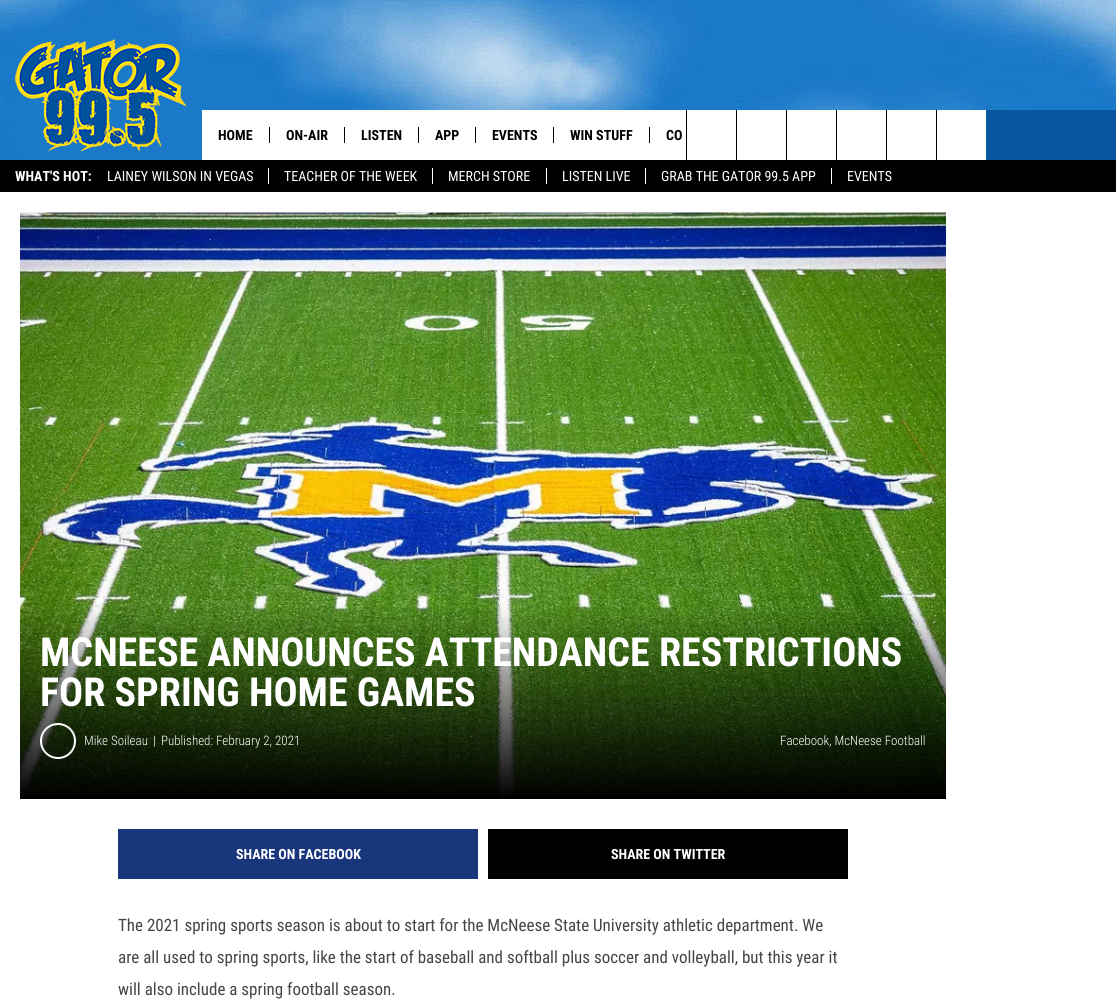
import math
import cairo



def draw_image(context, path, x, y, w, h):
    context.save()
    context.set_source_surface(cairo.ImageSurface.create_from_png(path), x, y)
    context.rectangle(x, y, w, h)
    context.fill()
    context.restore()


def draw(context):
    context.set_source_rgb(1, 1, 1)
    context.paint()
    draw_image(context, "images/1.png", 0, 0, 1116, 160)
    draw_image(context, "images/2.png", 15, 39, 172, 113)
    context.set_source_rgb(1, 1, 1)
    context.rectangle(202, 110, 484, 50)
    context.fill()
    context.set_source_rgb(0, 0, 0)
    context.rectangle(269, 127, 1, 16)
    context.fill()
    context.rectangle(344, 127, 1, 16)
    context.fill()
    context.rectangle(418, 127, 1, 16)
    context.fill()
    context.rectangle(475, 127, 1, 16)
    context.fill()
    context.rectangle(553, 127, 1, 16)
    context.fill()
    context.rectangle(649, 127, 1, 16)
    context.fill()
    context.set_source_rgb(1, 1, 1)
    context.rectangle(687, 110, 49, 50)
    context.fill()
    context.set_source_rgb(0, 0, 0)
    context.rectangle(686, 110, 1, 50)
    context.fill()
    context.set_source_rgb(1, 1, 1)
    context.rectangle(737, 110, 249, 50)
    context.fill()
    context.set_source_rgb(0, 0, 0)
    context.rectangle(736, 110, 1, 50)
    context.fill()
    context.rectangle(786, 110, 1, 50)
    context.fill()
    context.rectangle(836, 110, 1, 50)
    context.fill()
    context.rectangle(886, 110, 1, 50)
    context.fill()
    context.rectangle(936, 110, 1, 50)
    context.fill()
    context.set_source_rgb(10 / 255, 85 / 255, 160 / 255)
    context.rectangle(986, 110, 130, 50)
    context.fill()
    context.set_source_rgb(0, 0, 0)
    context.rectangle(0, 160, 1116, 32)
    context.fill()
    context.set_source_rgb(1, 1, 1)
    context.rectangle(268, 168, 1, 16)
    context.fill()
    context.rectangle(432, 168, 1, 16)
    context.fill()
    context.rectangle(546, 168, 1, 16)
    context.fill()
    context.rectangle(645, 168, 1, 16)
    context.fill()
    context.rectangle(831, 168, 1, 16)
    context.fill()
    gradient = cairo.RadialGradient(483, 521, 0, 483, 521, 556)
    gradient.add_color_stop_rgba(0.4, 1, 1, 1, 1)
    gradient.add_color_stop_rgba(1, 247 / 255, 246 / 255, 247 / 255, 1)
    context.set_source(gradient)
    context.rectangle(20, 212, 926, 1)
    context.fill()
    draw_image(context, "images/3.png", 20, 212, 926, 587)
    context.arc(58, 741, 17, 0, 2 * math.pi)
    context.set_source_rgb(1, 1, 1)
    context.stroke()
    gradient = cairo.RadialGradient(58, 741, 0, 58, 741, 23)
    gradient.add_color_stop_rgba(0.4, 69 / 255, 68 / 255, 74 / 255, 0)
    gradient.add_color_stop_rgba(1, 69 / 255, 68 / 255, 74 / 255, 0.05)
    context.set_source(gradient)
    context.rectangle(42, 725, 32, 32)
    context.fill()
    context.set_source_rgb(25 / 255, 54 / 255, 124 / 255)
    context.rectangle(118, 829, 360, 50)
    context.fill()
    context.set_source_rgb(0, 0, 0)
    context.rectangle(488, 829, 360, 50)
    context.fill()
    context.select_font_face("Roboto Condensed", cairo.FontSlant.NORMAL, cairo.FontWeight.BOLD)
    context.set_font_size(14)
    context.move_to(218, 140)
    context.show_text("HOME")
    context.move_to(286, 140)
    context.show_text("ON-AIR")
    context.move_to(361, 140)
    context.show_text("LISTEN")
    context.move_to(435, 140)
    context.show_text("APP")
    context.move_to(492, 140)
    context.show_text("EVENTS")
    context.move_to(570, 140)
    context.show_text("WIN STUFF")
    context.move_to(666, 140)
    context.show_text("CO")
    context.set_source_rgb(1, 1, 1)
    context.move_to(15, 181)
    context.show_text("WHAT'S HOT:")
    context.select_font_face("Roboto Condensed")
    context.move_to(107, 181)
    context.show_text("LAINEY WILSON IN VEGAS")
    context.move_to(284, 181)
    context.show_text("TEACHER OF THE WEEK")
    context.move_to(448, 181)
    context.show_text("MERCH STORE")
    context.move_to(562, 181)
    context.show_text("LISTEN LIVE")
    context.move_to(661, 181)
    context.show_text("GRAB THE GATOR 99.5 APP")
    context.move_to(847, 181)
    context.show_text("EVENTS")
    context.select_font_face("Roboto Condensed", cairo.FontSlant.NORMAL, cairo.FontWeight.BOLD)
    context.set_font_size(40)
    context.move_to(40, 666)
    context.show_text("MCNEESE ANNOUNCES ATTENDANCE RESTRICTIONS")
    context.move_to(40, 706)
    context.show_text("FOR SPRING HOME GAMES")
    context.select_font_face("Roboto Condensed Light")
    context.set_font_size(13)
    context.move_to(84, 745)
    context.show_text("Mike Soileau")
    context.move_to(153, 745)
    context.show_text("|")
    context.move_to(161, 745)
    context.show_text("Published: February 2, 2021")
    context.move_to(780, 745)
    context.show_text("Facebook, McNeese Football")
    context.select_font_face("Roboto Condensed", cairo.FontSlant.NORMAL, cairo.FontWeight.BOLD)
    context.set_font_size(14)
    context.move_to(236, 859)
    context.show_text("SHARE ON FACEBOOK")
    context.move_to(611, 859)
    context.show_text("SHARE ON TWITTER")
    context.select_font_face("Roboto Condensed")
    context.set_font_size(17)
    context.set_source_rgb(69 / 255, 68 / 255, 74 / 255)
    context.move_to(118, 931)
    context.show_text("The 2021 spring sports season is about to start for the McNeese State University athletic department. We")
    context.move_to(118, 963)
    context.show_text("are all used to spring sports, like the start of baseball and softball plus soccer and volleyball, but this year it")
    context.move_to(118, 995)
    context.show_text("will also include a spring football season.")


surface = cairo.ImageSurface(cairo.Format.RGB24, 1116, 1004)
context = cairo.Context(surface)
options = cairo.FontOptions()
options.set_hint_metrics(cairo.HintMetrics.OFF)
options.set_hint_style(cairo.HintStyle.NONE)
context.set_font_options(options)
context.set_miter_limit(4)
draw(context)
surface.write_to_png("out.png")
